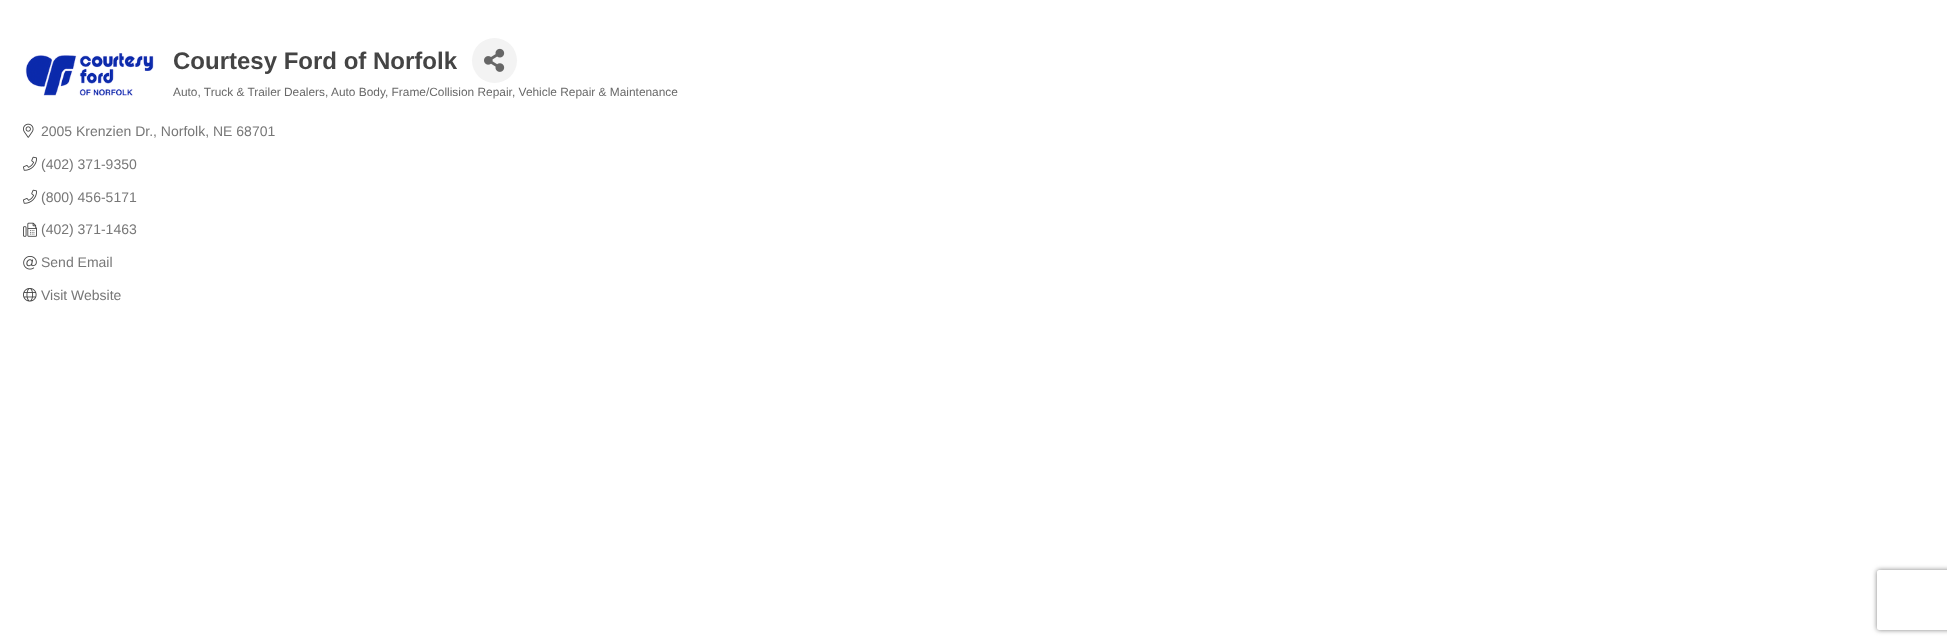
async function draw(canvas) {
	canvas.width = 1947;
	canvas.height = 644;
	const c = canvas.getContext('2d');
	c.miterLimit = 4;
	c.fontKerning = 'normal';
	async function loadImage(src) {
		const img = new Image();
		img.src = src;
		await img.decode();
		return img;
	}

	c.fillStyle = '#fff';
	c.fillRect(0, 0, 1947, 644);
	c.drawImage(await loadImage('img1.png'), 25, 53, 129, 43);
	c.font = 'bold 24px Liberation Sans';
	c.fillStyle = '#444';
	c.fillText('Courtesy Ford of Norfolk', 173, 69);
	c.fillStyle = '#f3f3f3';
	c.beginPath();
	c.arc(494.5, 60.5, 22.5, 0, 2 * Math.PI);
	c.fill();
	c.drawImage(await loadImage('img2.png'), 484, 48, 21, 24);
	c.font = '11.9px Liberation Sans';
	c.fillStyle = '#696969';
	for (const [text, x, y] of [
		['Auto, Truck & Trailer Dealers,', 173, 96],
		['Auto Body, Frame/Collision Repair', 331, 96],
		[', Vehicle Repair & Maintenance', 512, 96],
	]) {
		c.fillText(text, x, y);
	}
	c.drawImage(await loadImage('img3.png'), 23, 123, 11, 15);
	c.font = '14px Liberation Sans';
	c.fillStyle = '#777';
	c.fillText('2005 Krenzien Dr., Norfolk, NE 68701', 41, 136);
	c.drawImage(await loadImage('img4.png'), 23, 156, 14, 15);
	c.fillText('(402) 371-9350', 41, 169);
	c.drawImage(await loadImage('img4.png'), 23, 189, 14, 15);
	c.fillText('(800) 456-5171', 41, 202);
	c.drawImage(await loadImage('img5.png'), 23, 222, 14, 15);
	c.fillText('(402) 371-1463', 41, 234);
	c.drawImage(await loadImage('img6.png'), 23, 256, 14, 14);
	c.fillText('Send Email', 41, 267);
	c.drawImage(await loadImage('img7.png'), 23, 288, 14, 14);
	c.fillText('Visit Website', 41, 300);
	c.save();
	c.beginPath();
	c.moveTo(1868, 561);
	c.lineTo(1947, 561);
	c.lineTo(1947, 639);
	c.lineTo(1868, 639);
	c.closePath();
	c.moveTo(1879, 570);
	c.lineTo(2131, 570);
	c.bezierCurveTo(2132, 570, 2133, 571, 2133, 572);
	c.lineTo(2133, 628);
	c.bezierCurveTo(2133, 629, 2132, 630, 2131, 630);
	c.lineTo(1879, 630);
	c.bezierCurveTo(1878, 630, 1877, 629, 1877, 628);
	c.lineTo(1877, 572);
	c.bezierCurveTo(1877, 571, 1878, 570, 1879, 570);
	c.closePath();
	c.clip('evenodd');
	c.fillStyle = '#808080';
	c.filter = 'blur(2.5px)';
	c.beginPath();
	c.roundRect(1877, 570, 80, 60, 2);
	c.fill();
	c.filter = 'none';
	c.restore();
}

draw(document.querySelector('canvas'));
